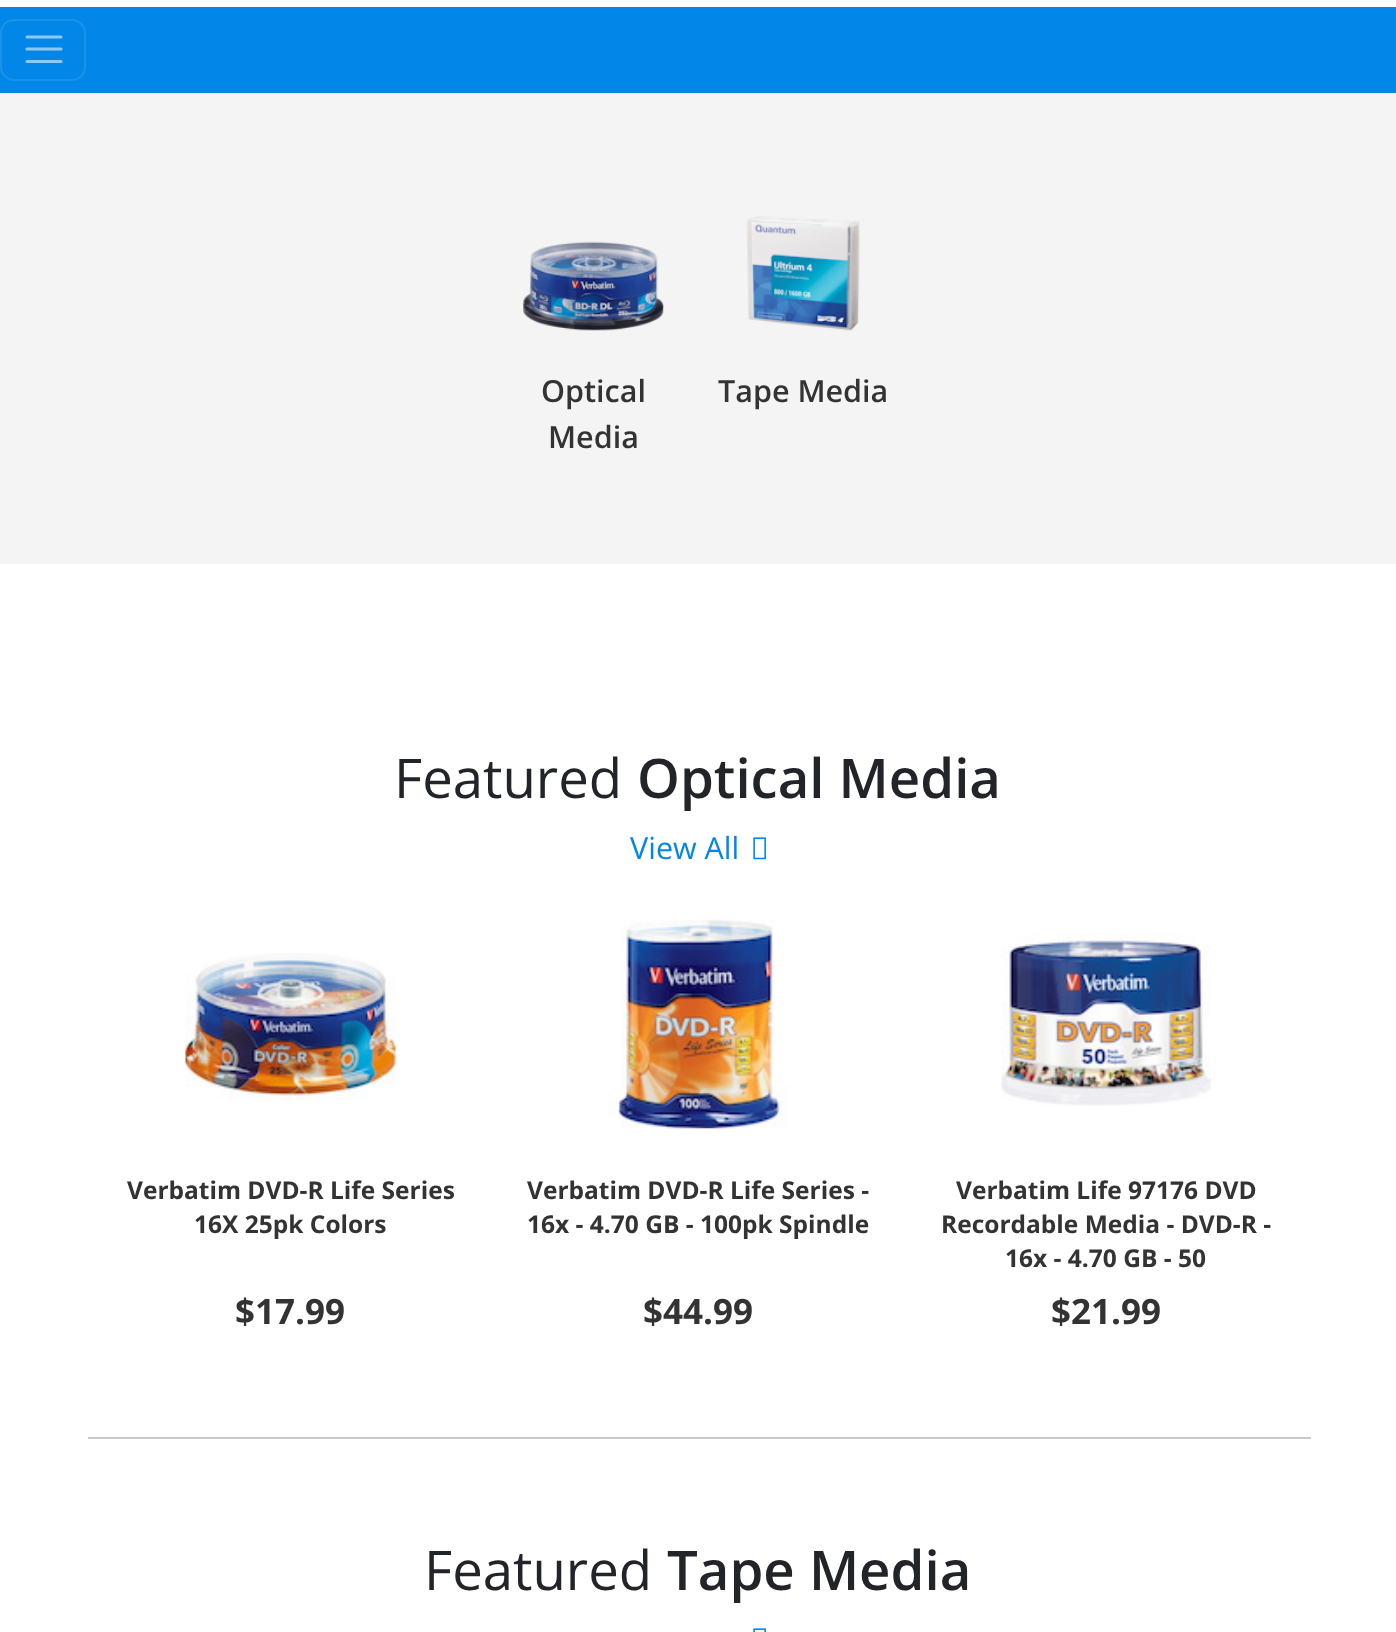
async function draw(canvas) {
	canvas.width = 1396;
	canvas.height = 1632;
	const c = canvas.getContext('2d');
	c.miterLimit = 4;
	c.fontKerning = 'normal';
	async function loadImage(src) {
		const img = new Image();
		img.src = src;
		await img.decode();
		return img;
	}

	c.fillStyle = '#fff';
	c.fillRect(0, 0, 1396, 1632);
	c.fillStyle = '#0286e7';
	c.fillRect(0, 7, 1396, 86);
	c.beginPath();
	c.roundRect(1, 20, 84, 60, 13);
	c.strokeStyle = '#1b92e9';
	c.lineWidth = 2;
	c.stroke();
	c.beginPath();
	c.moveTo(27, 37);
	c.lineTo(61, 37);
	c.moveTo(27, 49);
	c.lineTo(61, 49);
	c.moveTo(27, 61.5);
	c.lineTo(61, 61.5);
	c.strokeStyle = '#8dc9f4';
	c.lineWidth = 3.1;
	c.lineCap = 'round';
	c.stroke();
	c.fillStyle = '#f4f4f4';
	c.fillRect(0, 93, 1396, 471);
	c.drawImage(await loadImage('img1.png'), 523, 241, 141, 90);
	c.font = '600 30.5px Open Sans';
	c.fillStyle = '#333';
	c.fillText('Optical', 541, 402);
	c.fillText('Media', 548, 448);
	c.drawImage(await loadImage('img2.png'), 746, 216, 114, 115);
	c.fillText('Tape Media', 718, 402);
	c.font = '54.5px Open Sans';
	c.fillStyle = '#212529';
	c.fillText('Featured', 394, 798);
	c.font = '600 54.5px Open Sans';
	c.fillText('Optical Media', 637, 798);
	c.font = '30.5px Open Sans';
	c.fillStyle = '#0286e7';
	c.fillText('View All', 630, 859);
	c.drawImage(await loadImage('img3.png'), 753, 837, 13, 23);
	c.drawImage(await loadImage('img4.png'), 185, 953, 211, 147);
	c.font = 'bold 24.5px Open Sans';
	c.fillStyle = '#333';
	c.fillText('Verbatim DVD-R Life Series', 127, 1199);
	c.fillText('16X 25pk Colors', 194, 1233);
	c.font = 'bold 35px Open Sans';
	c.fillText('$17.99', 235, 1324);
	c.drawImage(await loadImage('img5.png'), 608, 919, 181, 210);
	c.font = 'bold 24.5px Open Sans';
	c.fillText('Verbatim DVD-R Life Series -', 527, 1199);
	c.fillText('16x - 4.70 GB - 100pk Spindle', 527, 1233);
	c.font = 'bold 35px Open Sans';
	c.fillText('$44.99', 643, 1324);
	c.drawImage(await loadImage('img6.png'), 1001, 933, 210, 173);
	c.font = 'bold 24.5px Open Sans';
	for (const [text, x, y] of [
		['Verbatim Life 97176 DVD', 956, 1199],
		['Recordable Media - DVD-R -', 941, 1233],
		['16x - 4.70 GB - 50', 1005, 1267],
	]) {
		c.fillText(text, x, y);
	}
	c.font = 'bold 35px Open Sans';
	c.fillText('$21.99', 1051, 1324);
	c.fillStyle = '#c8c9ca';
	c.fillRect(88, 1437, 1223, 2);
	c.font = '54.5px Open Sans';
	c.fillStyle = '#212529';
	c.fillText('Featured', 424, 1590);
	c.font = '600 54.5px Open Sans';
	c.fillText('Tape Media', 667, 1590);
	c.drawImage(await loadImage('img7.png'), 753, 1628, 13, 4);
}

draw(document.querySelector('canvas'));
